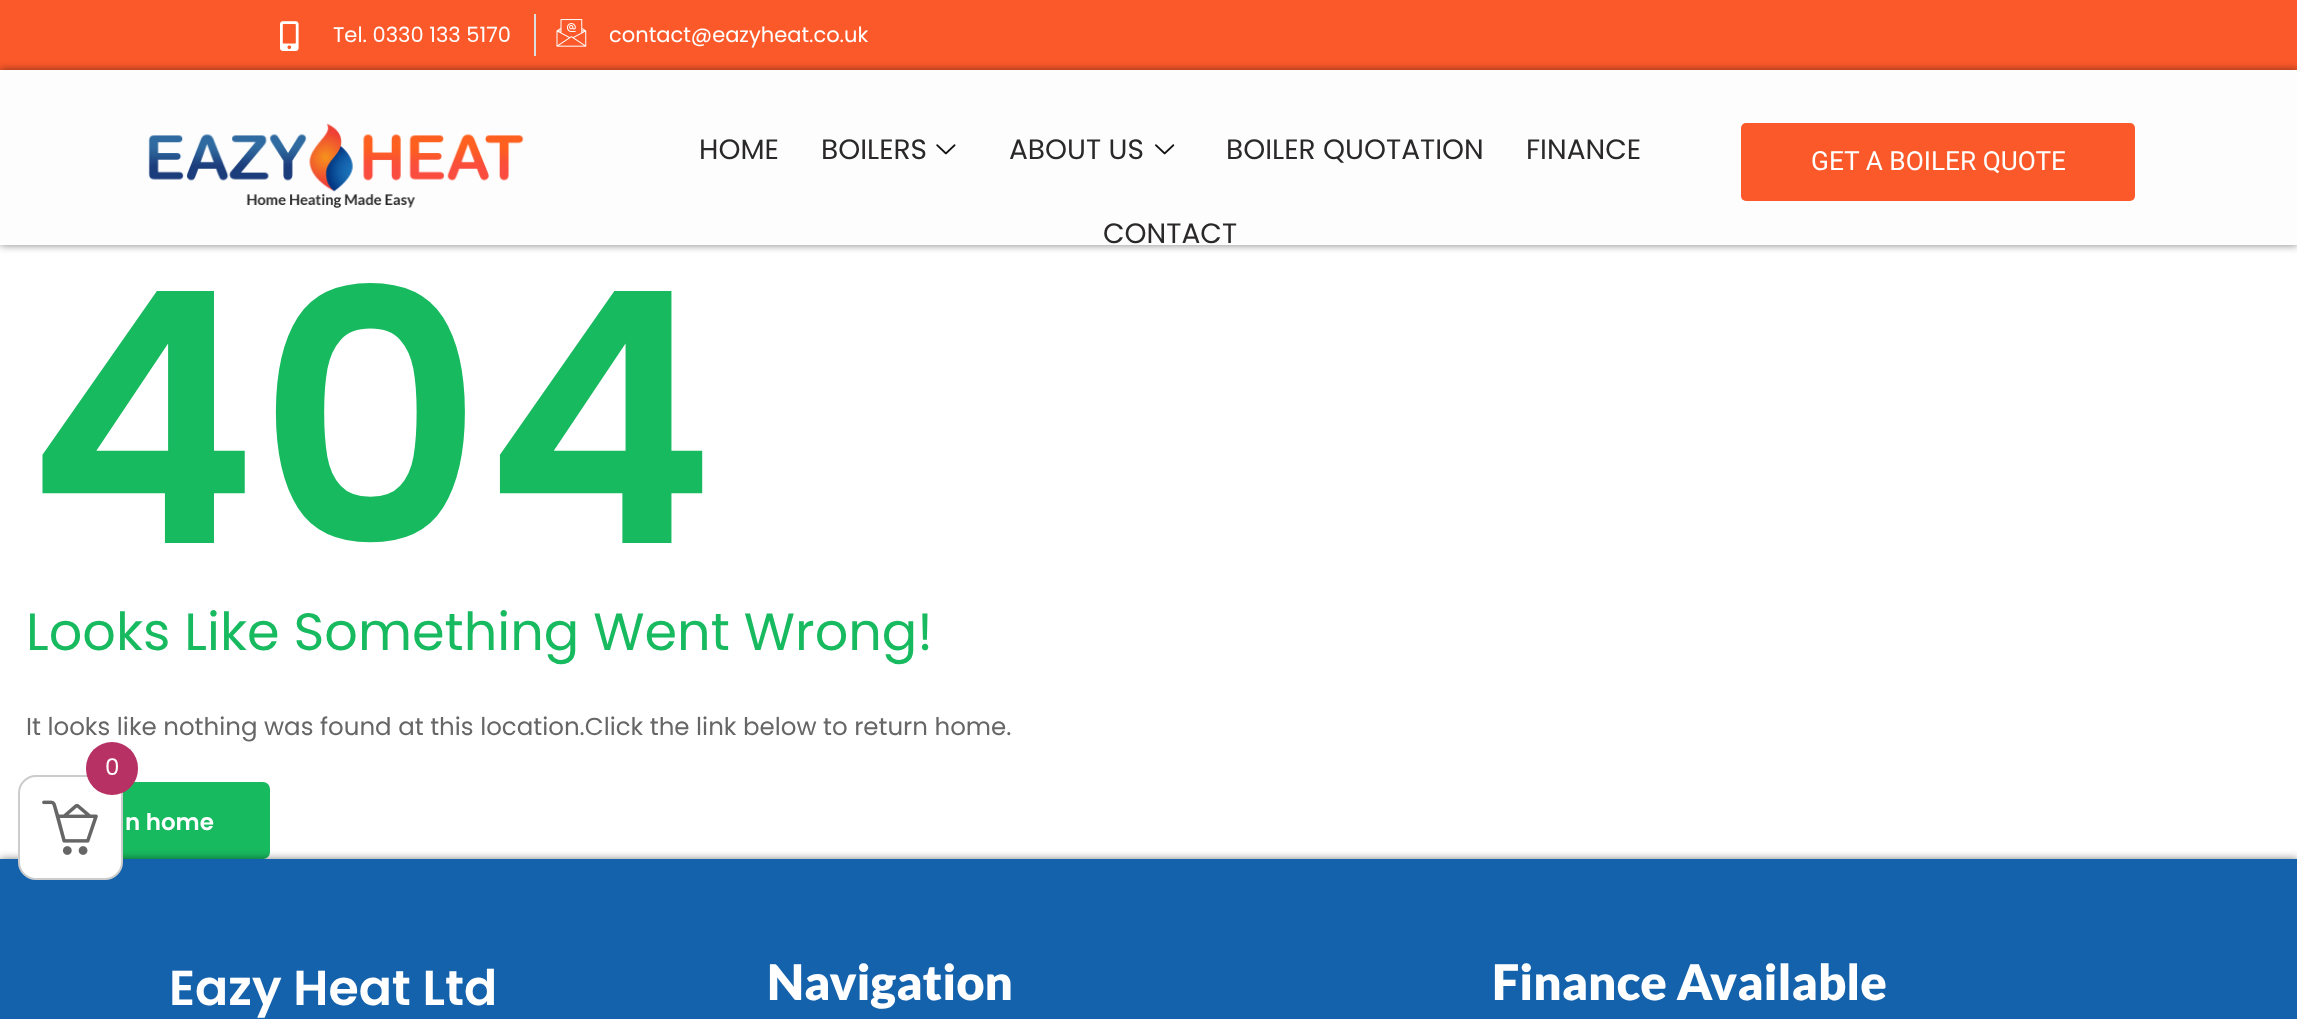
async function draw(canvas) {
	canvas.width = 2297;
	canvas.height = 1019;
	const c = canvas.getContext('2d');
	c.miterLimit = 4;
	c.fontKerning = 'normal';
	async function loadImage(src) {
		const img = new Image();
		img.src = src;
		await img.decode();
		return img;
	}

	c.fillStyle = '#fff';
	c.fillRect(0, 0, 2297, 1019);
	c.fillStyle = '#fb592a';
	c.fillRect(0, 0, 2297, 70);
	c.drawImage(await loadImage('img1.png'), 280, 21, 19, 30);
	c.font = '21px Poppins';
	c.fillStyle = '#fff';
	c.fillText('Tel. 0330 133 5170', 333, 42);
	c.fillStyle = '#ddd';
	c.fillRect(534, 14, 2, 42);
	c.drawImage(await loadImage('img2.png'), 556, 19, 31, 28);
	c.fillStyle = '#fff';
	c.fillText('contact@eazyheat.co.uk', 609, 42);
	c.fillStyle = '#00000080';
	c.filter = 'blur(4.5px)';
	c.beginPath();
	c.rect(0, 70, 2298, 175);
	c.fill();
	c.filter = 'none';
	c.fillStyle = '#fdfdfd';
	c.fillRect(0, 70, 2297, 175);
	c.drawImage(await loadImage('img3.png'), 148, 123, 376, 85);
	c.font = '28px Poppins';
	c.fillStyle = '#2a2828';
	c.fillText('HOME', 699, 159);
	c.fillText('BOILERS', 821, 159);
	c.drawImage(await loadImage('img4.png'), 936, 144, 20, 11);
	c.fillText('ABOUT US', 1009, 159);
	c.drawImage(await loadImage('img5.png'), 1155, 144, 20, 11);
	for (const [text, x, y] of [
		['BOILER QUOTATION', 1226, 159],
		['FINANCE', 1526, 159],
		['CONTACT', 1103, 243],
	]) {
		c.fillText(text, x, y);
	}
	c.fillStyle = '#fb592a';
	c.beginPath();
	c.roundRect(1741, 123, 394, 78, 5);
	c.fill();
	c.font = '26.25px Roboto';
	c.fillStyle = '#fff';
	c.fillText('GET A BOILER QUOTE', 1811, 170);
	c.font = '600 350px Poppins';
	c.fillStyle = '#18ba60';
	c.fillText('404', 26, 543);
	c.font = '52.5px Poppins';
	c.fillText('Looks Like Something Went Wrong!', 26, 650);
	c.font = '24.5px Poppins';
	c.fillStyle = '#666';
	c.fillText('It looks like nothing was found at this location.Click the link below to return home.', 26, 735);
	c.fillStyle = '#18ba60';
	c.beginPath();
	c.roundRect(26, 782, 244, 77, 7);
	c.fill();
	c.font = '600 23px Poppins';
	c.fillStyle = '#fff';
	c.fillText('n home', 125, 830);
	c.fillStyle = '#00000080';
	c.filter = 'blur(4.5px)';
	c.beginPath();
	c.rect(0, 859, 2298, 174);
	c.fill();
	c.filter = 'none';
	c.fillStyle = '#1462ac';
	c.fillRect(0, 859, 2297, 160);
	c.fillStyle = '#fff';
	c.beginPath();
	c.roundRect(19, 776, 103, 103, 17);
	c.fill();
	c.strokeStyle = '#ccc';
	c.lineWidth = 2;
	c.stroke();
	c.fillStyle = '#b83164';
	c.beginPath();
	c.roundRect(86, 742, 52, 53, 26);
	c.fill();
	c.font = '23px Poppins';
	c.fillStyle = '#fff';
	c.fillText('0', 105, 775);
	c.drawImage(await loadImage('img6.png'), 42, 800, 56, 55);
	c.font = '600 49px Poppins';
	c.fillText('Eazy Heat Ltd', 169, 1005);
	c.font = '900 49px Lato';
	c.fillText('Navigation', 767, 1000);
	c.fillText('Finance Available', 1492, 1000);
}

draw(document.querySelector('canvas'));
